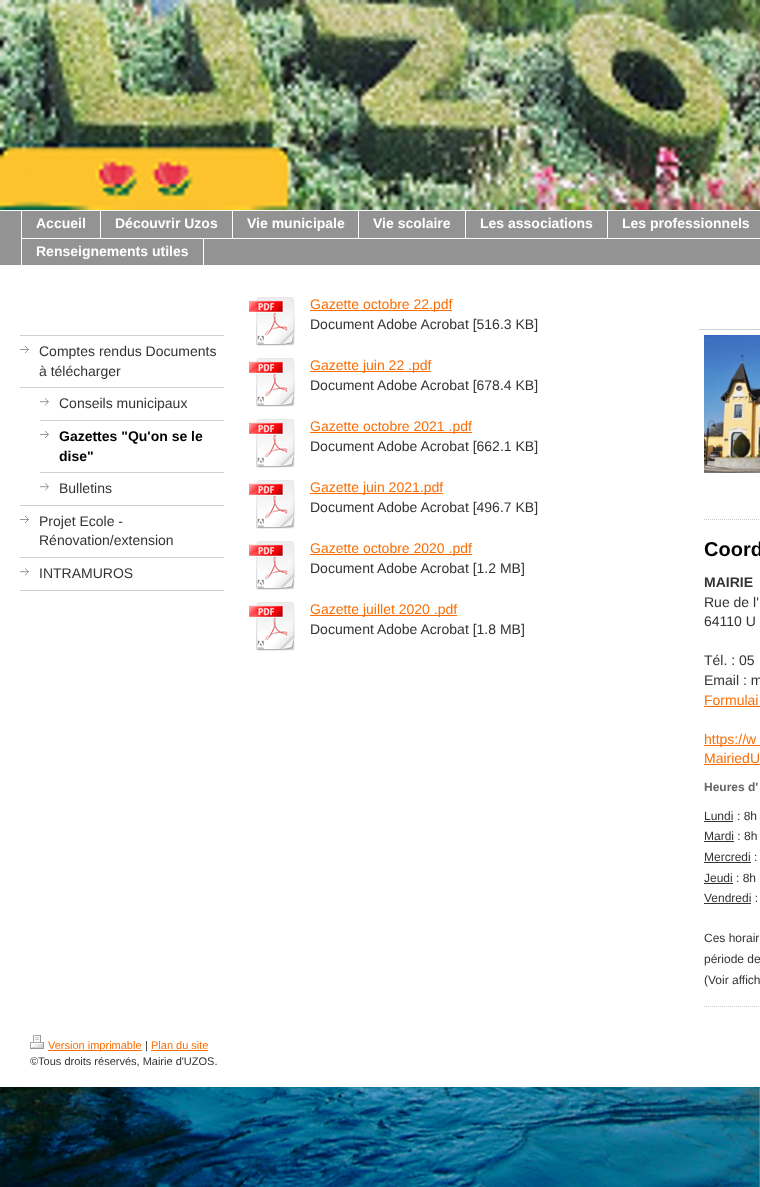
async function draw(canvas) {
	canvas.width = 760;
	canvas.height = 1187;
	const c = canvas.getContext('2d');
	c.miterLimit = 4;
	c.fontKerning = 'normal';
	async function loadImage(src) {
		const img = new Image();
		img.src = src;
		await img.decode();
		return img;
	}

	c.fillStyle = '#fff';
	c.fillRect(0, 0, 760, 1187);
	c.drawImage(await loadImage('img1.png'), 0, 1087, 760, 100);
	c.drawImage(await loadImage('img2.png'), 0, 0, 760, 210);
	for (const [x, y, w, h, color] of [
		[0, 211, 760, 54, '#939393'],
		[21, 210, 1, 55, '#fff'],
		[100, 210, 1, 29, '#fff'],
	]) {
		c.fillStyle = color;
		c.fillRect(x, y, w, h);
	}
	c.font = 'bold 14px Liberation Sans';
	c.fillText('Accueil', 36, 228);
	c.fillRect(232, 210, 1, 29);
	c.fillRect(22, 238, 211, 1);
	c.fillText('Découvrir Uzos', 115, 228);
	c.fillRect(358, 210, 1, 29);
	c.fillRect(233, 238, 126, 1);
	c.fillText('Vie municipale', 247, 228);
	c.fillRect(465, 210, 1, 29);
	c.fillRect(359, 238, 107, 1);
	c.fillText('Vie scolaire', 373, 228);
	c.fillRect(607, 210, 1, 29);
	c.fillRect(466, 238, 294, 1);
	c.fillText('Les associations', 480, 228);
	c.fillText('Les professionnels', 622, 228);
	c.fillRect(203, 238, 1, 28);
	c.fillText('Renseignements utiles', 36, 256);
	c.fillStyle = '#cad1d5';
	c.fillRect(20, 335, 204, 1);
	c.drawImage(await loadImage('img3.png'), 20, 346, 9, 7);
	c.fillRect(20, 387, 204, 1);
	c.font = '14px Liberation Sans';
	c.fillStyle = '#333';
	c.fillText('Comptes rendus Documents', 39, 356);
	c.fillText('à télécharger', 39, 376);
	c.drawImage(await loadImage('img4.png'), 40, 398, 9, 8);
	c.fillStyle = '#cad1d5';
	c.fillRect(40, 420, 184, 1);
	c.fillStyle = '#333';
	c.fillText('Conseils municipaux', 59, 408);
	c.drawImage(await loadImage('img3.png'), 40, 431, 9, 7);
	c.fillStyle = '#cad1d5';
	c.fillRect(40, 472, 184, 1);
	c.font = 'bold 14px Liberation Sans';
	c.fillStyle = '#010101';
	c.fillText('Gazettes "Qu\'on se le', 59, 441);
	c.fillText('dise"', 59, 461);
	c.drawImage(await loadImage('img4.png'), 40, 483, 9, 8);
	c.font = '14px Liberation Sans';
	c.fillStyle = '#333';
	c.fillText('Bulletins', 59, 493);
	c.drawImage(await loadImage('img3.png'), 20, 516, 9, 7);
	c.fillStyle = '#cad1d5';
	c.fillRect(20, 505, 204, 1);
	c.fillRect(20, 557, 204, 1);
	c.fillStyle = '#333';
	c.fillText('Projet Ecole -', 39, 526);
	c.fillText('Rénovation/extension', 39, 545);
	c.drawImage(await loadImage('img4.png'), 20, 568, 9, 8);
	c.fillStyle = '#cad1d5';
	c.fillRect(20, 590, 204, 1);
	c.fillStyle = '#333';
	c.fillText('INTRAMUROS', 39, 578);
	c.drawImage(await loadImage('img5.png'), 249, 297, 46, 49);
	c.fillStyle = '#fb6e05';
	c.fillRect(310, 310, 142, 1);
	c.fillText('Gazette octobre 22.pdf', 310, 309);
	c.fillStyle = '#333';
	c.fillText('Document Adobe Acrobat [516.3 KB]', 310, 329);
	c.drawImage(await loadImage('img5.png'), 249, 358, 46, 49);
	c.fillStyle = '#fb6e05';
	c.fillRect(310, 371, 121, 1);
	c.fillText('Gazette juin 22 .pdf', 310, 370);
	c.fillStyle = '#333';
	c.fillText('Document Adobe Acrobat [678.4 KB]', 310, 390);
	c.drawImage(await loadImage('img5.png'), 249, 419, 46, 49);
	c.fillStyle = '#fb6e05';
	c.fillRect(310, 432, 162, 1);
	c.fillText('Gazette octobre 2021 .pdf', 310, 431);
	c.fillStyle = '#333';
	c.fillText('Document Adobe Acrobat [662.1 KB]', 310, 451);
	c.drawImage(await loadImage('img5.png'), 249, 480, 46, 49);
	c.fillStyle = '#fb6e05';
	c.fillRect(310, 493, 133, 1);
	c.fillText('Gazette juin 2021.pdf', 310, 492);
	c.fillStyle = '#333';
	c.fillText('Document Adobe Acrobat [496.7 KB]', 310, 512);
	c.drawImage(await loadImage('img5.png'), 249, 541, 46, 49);
	c.fillStyle = '#fb6e05';
	c.fillRect(310, 554, 162, 1);
	c.fillText('Gazette octobre 2020 .pdf', 310, 553);
	c.fillStyle = '#333';
	c.fillText('Document Adobe Acrobat [1.2 MB]', 310, 573);
	c.drawImage(await loadImage('img5.png'), 249, 602, 46, 49);
	c.fillStyle = '#fb6e05';
	c.fillRect(310, 615, 147, 1);
	c.fillText('Gazette juillet 2020 .pdf', 310, 614);
	c.fillStyle = '#333';
	c.fillText('Document Adobe Acrobat [1.8 MB]', 310, 634);
	c.fillStyle = '#cad1d5';
	c.fillRect(699, 329, 61, 1);
	c.drawImage(await loadImage('img6.png'), 704, 335, 56, 138);
	c.beginPath();
	c.moveTo(704, 519.5);
	c.lineTo(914, 519.5);
	c.strokeStyle = '#ccc';
	c.setLineDash([1, 1]);
	c.stroke();
	c.font = 'bold 20px Liberation Sans';
	c.fillStyle = '#010101';
	c.fillText('Coord', 704, 556);
	c.font = 'bold 14px Liberation Sans';
	c.fillStyle = '#333';
	c.fillText('MAIRIE', 704, 587);
	c.font = '14px Liberation Sans';
	for (const [text, x, y] of [
		['Rue de l\'', 704, 607],
		['64110 U', 704, 626],
		['Tél. : 05', 704, 665],
		['Email : m', 704, 685],
	]) {
		c.fillText(text, x, y);
	}
	c.fillStyle = '#fb6e05';
	c.fillText('Formulai', 704, 705);
	c.fillRect(704, 706, 56, 1);
	c.fillRect(704, 745, 56, 1);
	c.fillText('https://w', 704, 744);
	c.fillText('MairiedU', 704, 763);
	c.fillRect(704, 764, 56, 1);
	c.font = 'bold 12px Liberation Sans';
	c.fillStyle = '#666';
	c.fillText('Heures d\'', 704, 791);
	c.font = '12px Liberation Sans';
	c.fillStyle = '#333';
	c.fillText('Lundi', 704, 820);
	c.fillRect(704, 821, 29, 1);
	c.fillText(': 8h', 737, 820);
	c.fillText('Mardi : 8h', 704, 840);
	c.fillRect(704, 841, 30, 1);
	c.fillText('Mercredi :', 704, 861);
	c.fillRect(704, 862, 47, 1);
	c.fillText('Jeudi : 8h', 704, 882);
	c.fillRect(704, 883, 29, 1);
	c.fillText('Vendredi :', 704, 902);
	c.fillRect(704, 903, 47, 1);
	for (const [text, x, y] of [
		['Ces horair', 704, 942],
		['période de', 704, 963],
		['(Voir affich', 704, 984],
	]) {
		c.fillText(text, x, y);
	}
	c.beginPath();
	c.moveTo(704, 1006.5);
	c.lineTo(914, 1006.5);
	c.stroke();
	c.drawImage(await loadImage('img7.png'), 30, 1035, 14, 14);
	c.fillStyle = '#fb6e05';
	c.fillRect(48, 1050, 94, 1);
	c.font = '11px Liberation Sans';
	c.fillText('Version imprimable', 48, 1049);
	c.fillStyle = '#333';
	c.fillText('|', 145, 1049);
	c.fillStyle = '#fb6e05';
	c.fillText('Plan du site', 151, 1049);
	c.fillRect(151, 1050, 57, 1);
	c.fillStyle = '#333';
	c.fillText('©Tous droits réservés, Mairie d\'UZOS.', 30, 1065);
}

draw(document.querySelector('canvas'));
